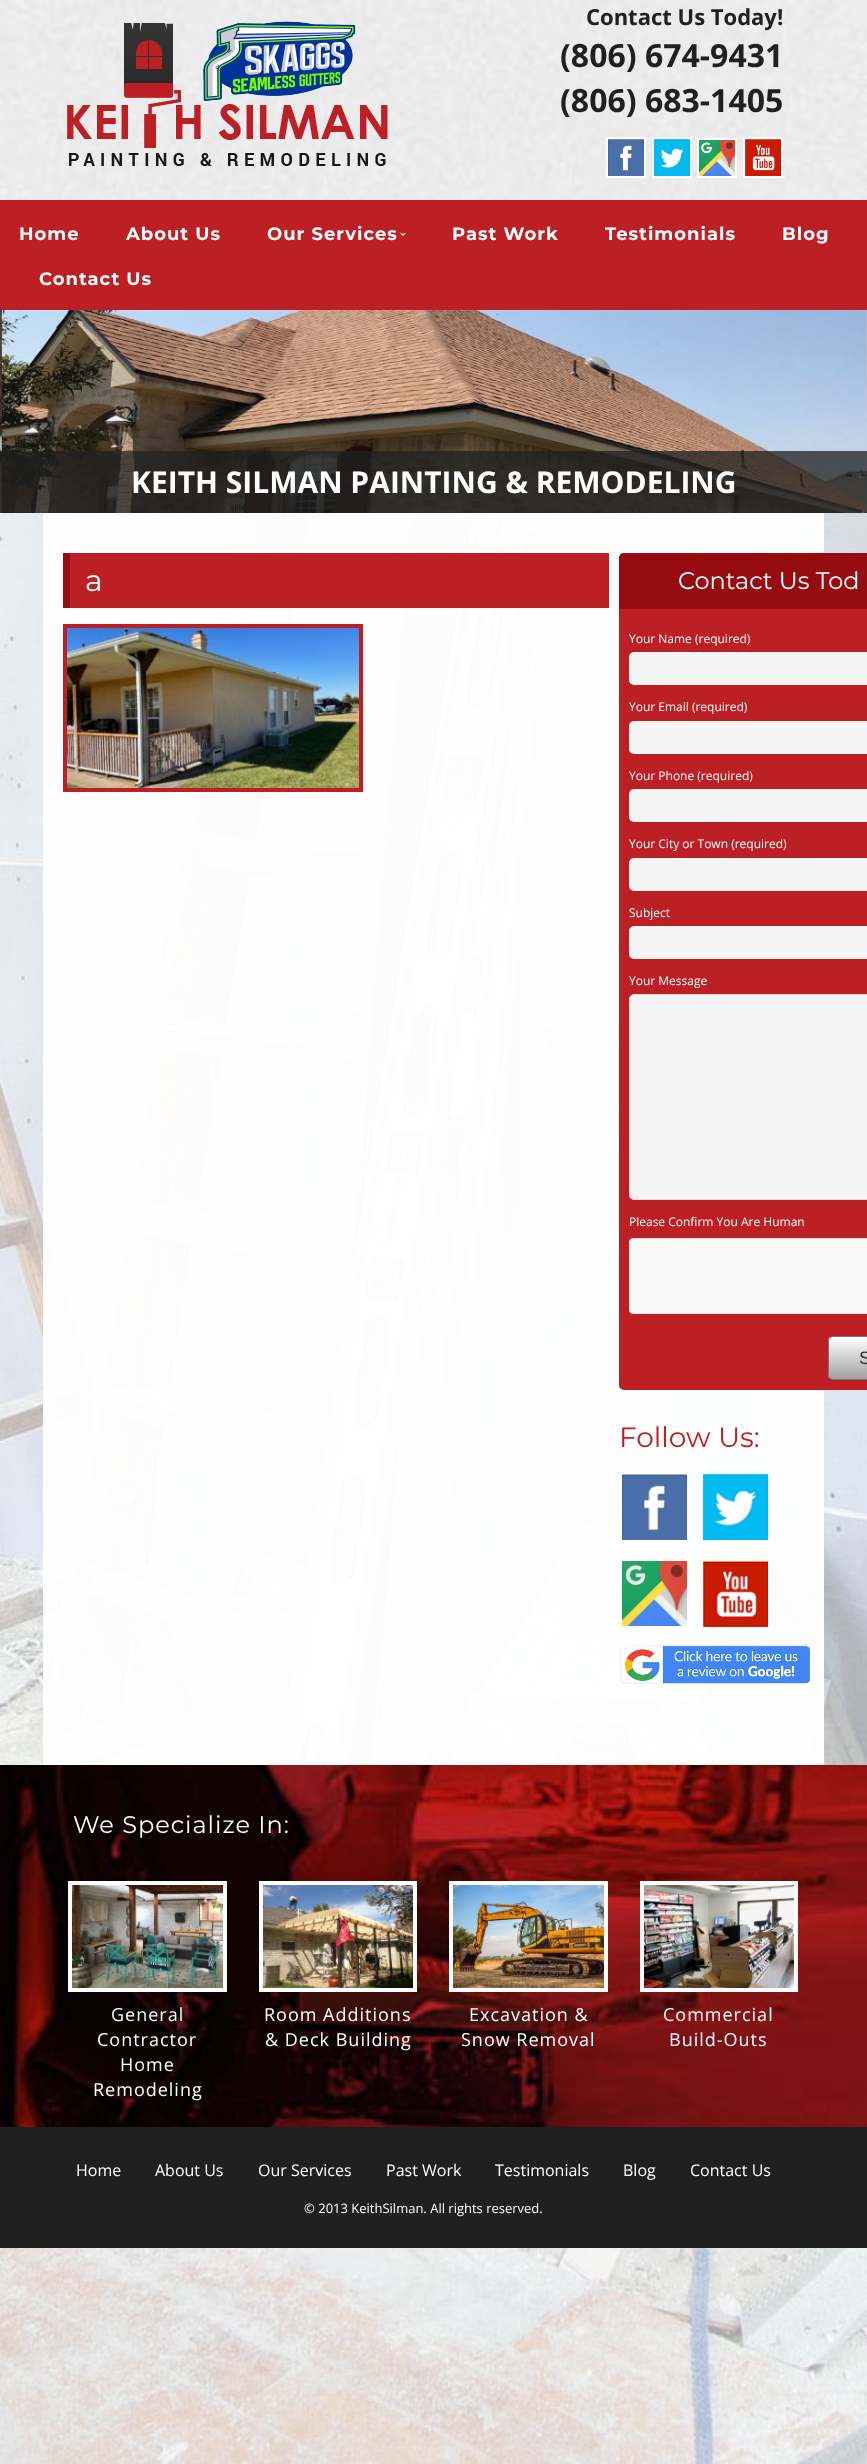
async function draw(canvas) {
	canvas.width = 867;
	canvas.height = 2464;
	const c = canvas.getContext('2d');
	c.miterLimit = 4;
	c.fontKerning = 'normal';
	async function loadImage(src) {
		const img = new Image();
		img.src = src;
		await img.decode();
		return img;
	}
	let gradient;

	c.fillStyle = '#fff';
	c.fillRect(0, 0, 867, 2464);
	c.drawImage(await loadImage('img1.png'), 0, 310, 867, 2154);
	c.drawImage(await loadImage('img2.png'), 0, 0, 867, 200);
	c.drawImage(await loadImage('img3.png'), 67, 21, 321, 145);
	c.font = 'bold 22px Open Sans';
	c.fillStyle = '#202020';
	c.fillText('Contact Us Today!', 586, 25);
	c.font = 'bold 32px Open Sans';
	c.fillText('(806) 674-9431', 560, 67);
	c.fillText('(806) 683-1405', 560, 112);
	c.strokeStyle = '#fff';
	c.lineWidth = 2;
	c.strokeRect(607, 138, 38, 39);
	c.strokeRect(653, 138, 38, 39);
	c.strokeRect(698, 139, 38, 38);
	c.strokeRect(744, 138, 38, 39);
	c.drawImage(await loadImage('img4.png'), 608, 139, 36, 37);
	c.drawImage(await loadImage('img5.png'), 654, 139, 36, 37);
	c.drawImage(await loadImage('img6.png'), 699, 140, 36, 36);
	c.drawImage(await loadImage('img7.png'), 745, 139, 36, 37);
	c.fillStyle = '#bc2025';
	c.fillRect(0, 200, 867, 110);
	c.letterSpacing = '1px';
	c.font = 'bold 18px Montserrat';
	c.fillStyle = '#fff';
	for (const [text, x, y] of [
		['Home', 19, 240],
		['About Us', 126, 240],
		['Our Services', 267, 240],
	]) {
		c.fillText(text, x, y);
	}
	c.drawImage(await loadImage('img8.png'), 400, 232, 6, 4);
	for (const [text, x, y] of [
		['Past Work', 452, 240],
		['Testimonials', 605, 240],
		['Blog', 782, 240],
		['Contact Us', 39, 285],
	]) {
		c.fillText(text, x, y);
	}
	c.drawImage(await loadImage('img9.png'), 0, 310, 867, 203);
	c.fillStyle = '#202020bf';
	c.fillRect(0, 451, 867, 62);
	c.letterSpacing = '0px';
	c.font = 'bold 30px Open Sans';
	c.fillStyle = '#fff';
	c.fillText('KEITH SILMAN PAINTING & REMODELING', 131, 493);
	for (const [x, y, w, h, color] of [
		[43, 513, 781, 1252, '#fffffff2'],
		[70, 553, 539, 55, '#bc2025'],
		[63, 553, 7, 55, '#970c10'],
	]) {
		c.fillStyle = color;
		c.fillRect(x, y, w, h);
	}
	c.font = '30px Montserrat';
	c.fillStyle = '#fff';
	c.fillText('a', 85, 591);
	c.strokeStyle = '#bc2025';
	c.lineWidth = 4;
	c.strokeRect(65, 626, 296, 164);
	c.drawImage(await loadImage('img10.png'), 67, 628, 292, 160);
	c.fillStyle = '#bc2025';
	c.beginPath();
	c.roundRect(619, 558, 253, 832, 5);
	c.fill();
	c.fillStyle = '#970c10';
	c.beginPath();
	c.moveTo(624, 553);
	c.lineTo(867, 553);
	c.bezierCurveTo(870, 553, 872, 555, 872, 558);
	c.lineTo(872, 609);
	c.lineTo(619, 609);
	c.lineTo(619, 558);
	c.bezierCurveTo(619, 555, 621, 553, 624, 553);
	c.closePath();
	c.fill();
	c.font = '24px Montserrat';
	c.fillStyle = '#fff';
	c.fillText('Contact Us Tod', 678, 589);
	c.font = '12px Open Sans';
	c.fillText('Your Name (required)', 629, 643);
	c.fillStyle = '#f5f5f5';
	c.beginPath();
	c.roundRect(629, 652, 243, 33, 5);
	c.fill();
	c.fillStyle = '#fff';
	c.fillText('Your Email (required)', 629, 711);
	c.fillStyle = '#f5f5f5';
	c.beginPath();
	c.roundRect(629, 721, 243, 33, 5);
	c.fill();
	c.fillStyle = '#fff';
	c.fillText('Your Phone (required)', 629, 780);
	c.fillStyle = '#f5f5f5';
	c.beginPath();
	c.roundRect(629, 789, 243, 33, 5);
	c.fill();
	c.fillStyle = '#fff';
	c.fillText('Your City or Town (required)', 629, 848);
	c.fillStyle = '#f5f5f5';
	c.beginPath();
	c.roundRect(629, 858, 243, 33, 5);
	c.fill();
	c.fillStyle = '#fff';
	c.fillText('Subject', 629, 917);
	c.fillStyle = '#f5f5f5';
	c.beginPath();
	c.roundRect(629, 926, 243, 33, 5);
	c.fill();
	c.fillStyle = '#fff';
	c.fillText('Your Message', 629, 985);
	c.fillStyle = '#f5f5f5';
	c.beginPath();
	c.roundRect(629.5, 994.5, 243, 205, 4.5);
	c.fill();
	c.strokeStyle = '#ddd';
	c.lineWidth = 1;
	c.stroke();
	c.fillStyle = '#fff';
	c.fillText('Please Confirm You Are Human', 629, 1226);
	c.fillStyle = '#fafafa';
	c.beginPath();
	c.roundRect(629.5, 1238.5, 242, 75, 3.5);
	c.fill();
	c.strokeStyle = '#e0e0e0';
	c.stroke();
	c.save();
	c.beginPath();
	c.roundRect(828, 1336, 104, 44, 5);
	c.clip();
	gradient = c.createLinearGradient(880, 1337, 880, 1379);
	gradient.addColorStop(0, '#fff');
	gradient.addColorStop(1, '#a1a1a1');
	c.fillStyle = gradient;
	c.fillRect(828, 1337, 39, 42);
	c.restore();
	c.beginPath();
	c.roundRect(828.5, 1336.5, 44, 43, 4.5);
	c.strokeStyle = '#757575';
	c.stroke();
	c.font = '18px Liberation Sans';
	c.fillStyle = '#333';
	c.fillText('S', 859, 1364);
	c.font = '28px Montserrat';
	c.fillStyle = '#bc2025';
	c.fillText('Follow Us:', 619, 1447);
	c.strokeStyle = '#fff';
	c.lineWidth = 3;
	c.strokeRect(620.5, 1472.5, 68, 69);
	c.drawImage(await loadImage('img11.png'), 622, 1474, 65, 66);
	c.strokeRect(701.5, 1472.5, 68, 69);
	c.drawImage(await loadImage('img12.png'), 703, 1474, 65, 66);
	c.drawImage(await loadImage('img13.png'), 622, 1561, 65, 65);
	c.strokeRect(701.5, 1559.5, 68, 69);
	c.drawImage(await loadImage('img14.png'), 703, 1561, 65, 66);
	c.drawImage(await loadImage('img15.png'), 620, 1645, 190, 39);
	c.drawImage(await loadImage('img16.png'), 0, 1765, 867, 362);
	c.letterSpacing = '1px';
	c.font = '24px Montserrat';
	c.fillStyle = '#fff';
	c.fillText('We Specialize In:', 73, 1833);
	c.beginPath();
	c.rect(70, 1883, 155, 107);
	c.lineWidth = 4;
	c.stroke();
	c.drawImage(await loadImage('img17.png'), 72, 1885, 151, 103);
	c.font = '18px Open Sans';
	for (const [text, x, y] of [
		['General', 111, 2021],
		['Contractor', 97, 2046],
		['Home', 120, 2071],
		['Remodeling', 93, 2096],
	]) {
		c.fillText(text, x, y);
	}
	c.beginPath();
	c.rect(261, 1883, 154, 107);
	c.stroke();
	c.drawImage(await loadImage('img18.png'), 263, 1885, 150, 103);
	c.fillText('Room Additions', 264, 2021);
	c.fillText('& Deck Building', 265, 2046);
	c.beginPath();
	c.rect(451, 1883, 155, 107);
	c.stroke();
	c.drawImage(await loadImage('img19.png'), 453, 1885, 151, 103);
	c.fillText('Excavation &', 469, 2021);
	c.fillText('Snow Removal', 461, 2046);
	c.beginPath();
	c.rect(642, 1883, 154, 107);
	c.stroke();
	c.drawImage(await loadImage('img20.png'), 644, 1885, 150, 103);
	c.fillText('Commercial', 663, 2021);
	c.fillText('Build-Outs', 669, 2046);
	c.fillStyle = '#202020';
	c.fillRect(0, 2127, 867, 121);
	c.letterSpacing = '0px';
	c.font = '16px Open Sans';
	c.fillStyle = '#fff';
	for (const [text, x, y] of [
		['Home', 76, 2176],
		['About Us', 155, 2176],
		['Our Services', 258, 2176],
		['Past Work', 386, 2176],
		['Testimonials', 495, 2176],
		['Blog', 623, 2176],
		['Contact Us', 690, 2176],
	]) {
		c.fillText(text, x, y);
	}
	c.font = '13px Open Sans';
	c.fillText('© 2013 KeithSilman. All rights reserved.', 304, 2213);
}

draw(document.querySelector('canvas'));
